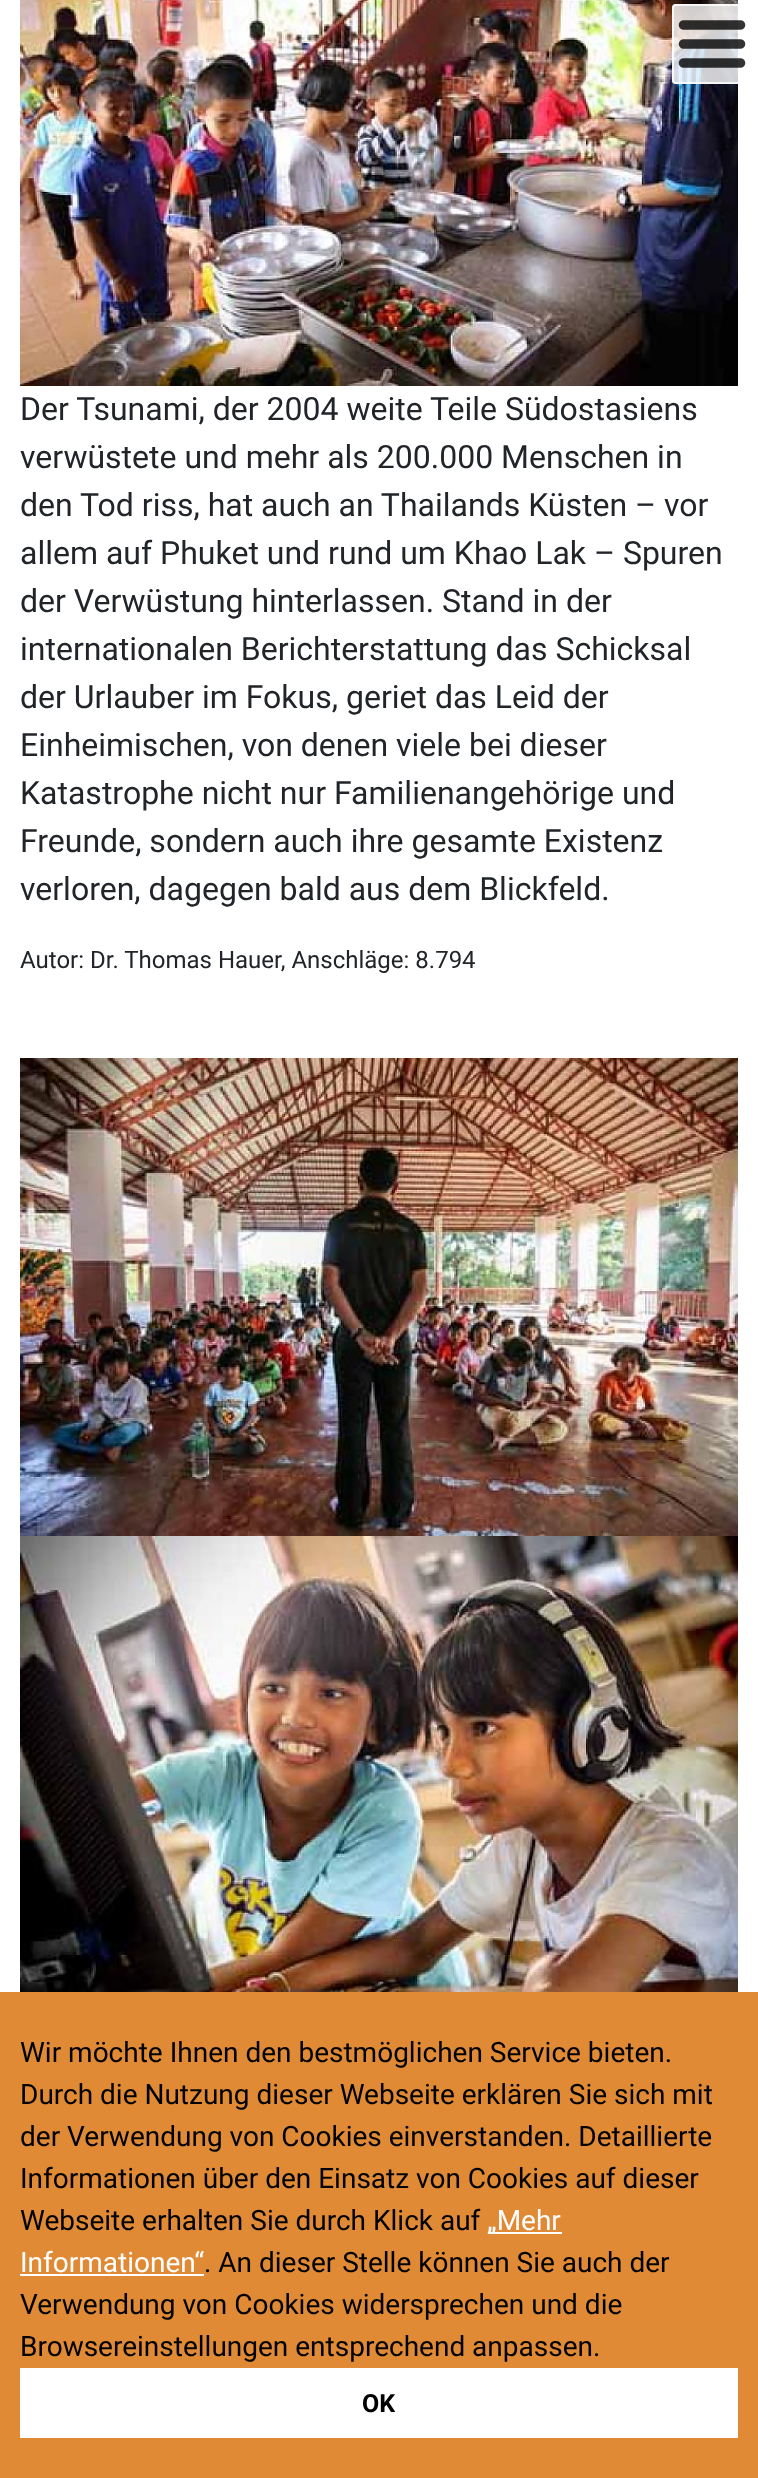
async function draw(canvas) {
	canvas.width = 758;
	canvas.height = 2478;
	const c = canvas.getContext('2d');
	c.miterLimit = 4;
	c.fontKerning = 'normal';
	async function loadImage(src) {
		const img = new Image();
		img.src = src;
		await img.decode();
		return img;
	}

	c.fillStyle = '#fff';
	c.fillRect(0, 0, 758, 2478);
	c.drawImage(await loadImage('img2.png'), 20, 0, 718, 386);
	c.fillStyle = '#ffffffcc';
	c.beginPath();
	c.roundRect(672, 4, 80, 80, 4);
	c.fill();
	c.drawImage(await loadImage('img1.png'), 678, 20, 68, 48);
	c.beginPath();
	c.roundRect(673, 5, 78, 78, 3);
	c.strokeStyle = '#ffffffcc';
	c.lineWidth = 2;
	c.stroke();
	c.font = '32px Roboto';
	c.fillStyle = '#212529';
	for (const [text, x, y] of [
		['Der Tsunami, der 2004 weite Teile Südostasiens', 20, 420],
		['verwüstete und mehr als 200.000 Menschen in', 20, 468],
		['den Tod riss, hat auch an Thailands Küsten – vor', 20, 516],
		['allem auf Phuket und rund um Khao Lak – Spuren', 20, 564],
		['der Verwüstung hinterlassen. Stand in der', 20, 612],
		['internationalen Berichterstattung das Schicksal', 20, 660],
		['der Urlauber im Fokus, geriet das Leid der', 20, 708],
		['Einheimischen, von denen viele bei dieser', 20, 756],
		['Katastrophe nicht nur Familienangehörige und', 20, 804],
		['Freunde, sondern auch ihre gesamte Existenz', 20, 852],
		['verloren, dagegen bald aus dem Blickfeld.', 20, 900],
	]) {
		c.fillText(text, x, y);
	}
	c.font = '24px Roboto';
	c.fillText('Autor: Dr. Thomas Hauer, Anschläge: 8.794', 20, 968);
	c.drawImage(await loadImage('img3.png'), 20, 1058, 718, 478);
	c.drawImage(await loadImage('img4.png'), 20, 1536, 718, 456);
	c.fillStyle = '#e08a35';
	c.fillRect(0, 1992, 758, 486);
	c.font = '28px Roboto';
	c.fillStyle = '#000';
	for (const [text, x, y] of [
		['Wir möchte Ihnen den bestmöglichen Service bieten.', 20, 2062],
		['Durch die Nutzung dieser Webseite erklären Sie sich mit', 20, 2104],
		['der Verwendung von Cookies einverstanden. Detaillierte', 20, 2146],
		['Informationen über den Einsatz von Cookies auf dieser', 20, 2188],
		['Webseite erhalten Sie durch Klick auf', 20, 2230],
	]) {
		c.fillText(text, x, y);
	}
	c.fillStyle = '#fff';
	c.fillRect(488, 2232, 74, 2);
	c.fillText('„Mehr', 487, 2230);
	c.fillText('Informationen“', 20, 2272);
	c.fillRect(20, 2274, 184, 2);
	c.fillStyle = '#000';
	for (const [text, x, y] of [
		['. An dieser Stelle können Sie auch der', 204, 2272],
		['Verwendung von Cookies widersprechen und die', 20, 2314],
		['Browsereinstellungen entsprechend anpassen.', 20, 2356],
	]) {
		c.fillText(text, x, y);
	}
	c.fillStyle = '#fff';
	c.fillRect(20, 2368, 718, 70);
	c.font = 'bold 25px Roboto';
	c.fillStyle = '#000';
	c.fillText('OK', 362, 2412);
}

draw(document.querySelector('canvas'));
